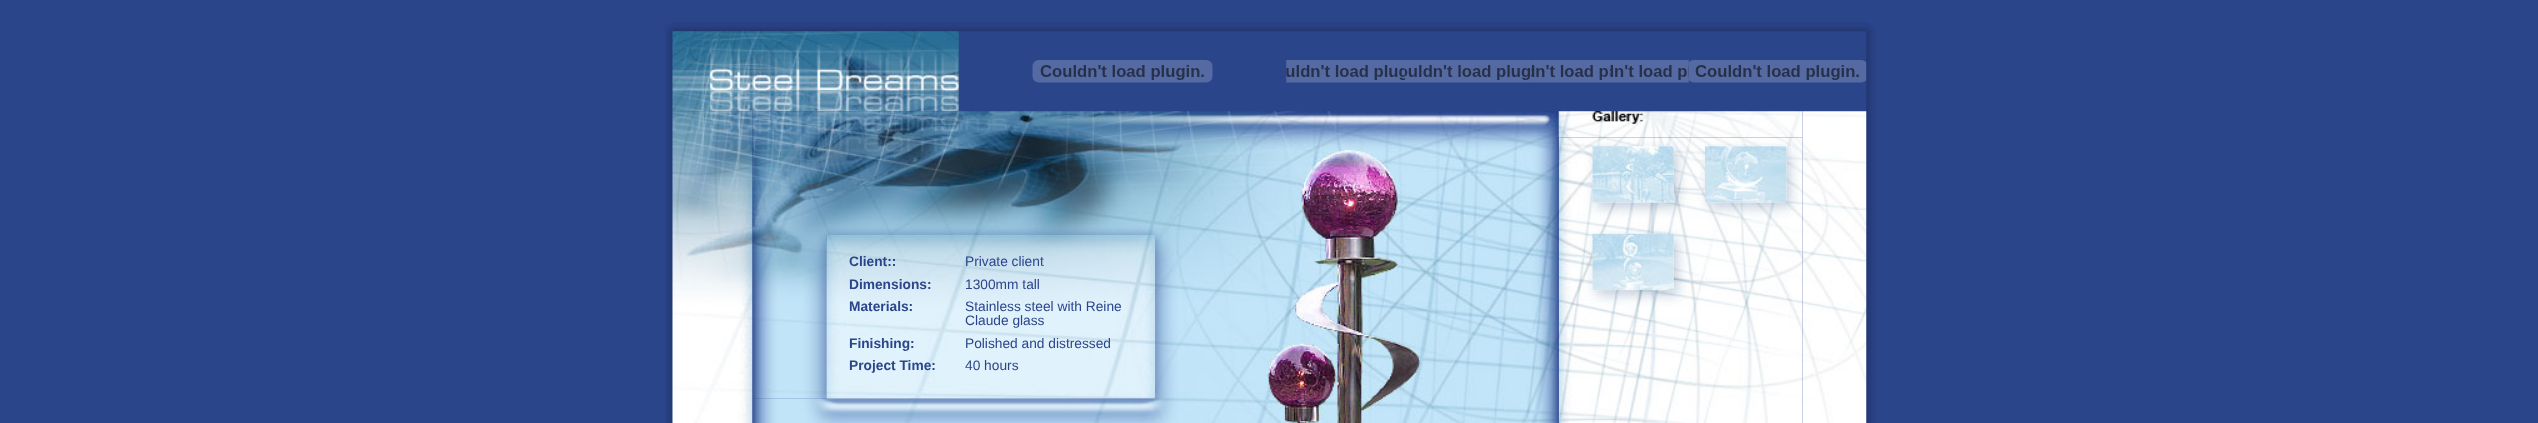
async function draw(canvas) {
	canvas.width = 2538;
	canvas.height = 423;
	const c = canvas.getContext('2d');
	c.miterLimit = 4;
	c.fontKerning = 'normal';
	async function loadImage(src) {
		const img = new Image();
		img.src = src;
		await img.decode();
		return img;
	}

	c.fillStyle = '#2b458b';
	c.fillRect(0, 0, 2538, 423);
	c.drawImage(await loadImage('img1.png'), 664, 24, 8, 7);
	c.drawImage(await loadImage('img2.png'), 672, 22, 1195, 10);
	c.drawImage(await loadImage('img3.png'), 1866, 23, 10, 8);
	c.drawImage(await loadImage('img4.png'), 665, 31, 8, 392);
	c.drawImage(await loadImage('img5.png'), 672, 31, 287, 81);
	c.drawImage(await loadImage('img6.png'), 1032, 60, 181, 23);
	c.drawImage(await loadImage('img7.png'), 1286, 60, 119, 23);
	c.drawImage(await loadImage('img8.png'), 1405, 60, 127, 23);
	c.drawImage(await loadImage('img9.png'), 1531, 60, 79, 23);
	c.drawImage(await loadImage('img10.png'), 1610, 60, 79, 23);
	c.drawImage(await loadImage('img24.png'), 1866, 31, 10, 392);
	c.drawImage(await loadImage('img11.png'), 1688, 60, 179, 23);
	c.drawImage(await loadImage('img12.png'), 672, 111, 81, 312);
	c.drawImage(await loadImage('img13.png'), 752, 111, 403, 124);
	c.drawImage(await loadImage('img15.png'), 826, 235, 329, 164);
	c.drawImage(await loadImage('img14.png'), 752, 235, 75, 164);
	c.font = 'bold 13.75px Liberation Sans';
	c.fillText('Client::', 849, 266);
	c.font = '13.75px Liberation Sans';
	c.fillText('Private client', 965, 266);
	c.font = 'bold 13.75px Liberation Sans';
	c.fillText('Dimensions:', 849, 289);
	c.font = '13.75px Liberation Sans';
	c.fillText('1300mm tall', 965, 289);
	c.font = 'bold 13.75px Liberation Sans';
	c.fillText('Materials:', 849, 311);
	c.font = '13.75px Liberation Sans';
	c.fillText('Stainless steel with Reine', 965, 311);
	c.fillText('Claude glass', 965, 325);
	c.font = 'bold 13.75px Liberation Sans';
	c.fillText('Finishing:', 849, 348);
	c.font = '13.75px Liberation Sans';
	c.fillText('Polished and distressed', 965, 348);
	c.font = 'bold 13.75px Liberation Sans';
	c.fillText('Project Time:', 849, 370);
	c.font = '13.75px Liberation Sans';
	c.fillText('40 hours', 965, 370);
	c.drawImage(await loadImage('img16.png'), 752, 398, 403, 25);
	c.drawImage(await loadImage('img19.png'), 1558, 137, 245, 286);
	c.drawImage(await loadImage('img17.png'), 1155, 111, 404, 312);
	c.drawImage(await loadImage('img18.png'), 1558, 111, 245, 27);
	c.drawImage(await loadImage('img20.png'), 1592, 146, 82, 57);
	c.drawImage(await loadImage('img21.png'), 1705, 146, 82, 57);
	c.drawImage(await loadImage('img22.png'), 1592, 233, 82, 57);
	c.drawImage(await loadImage('img23.png'), 1802, 111, 65, 312);
}

draw(document.querySelector('canvas'));
